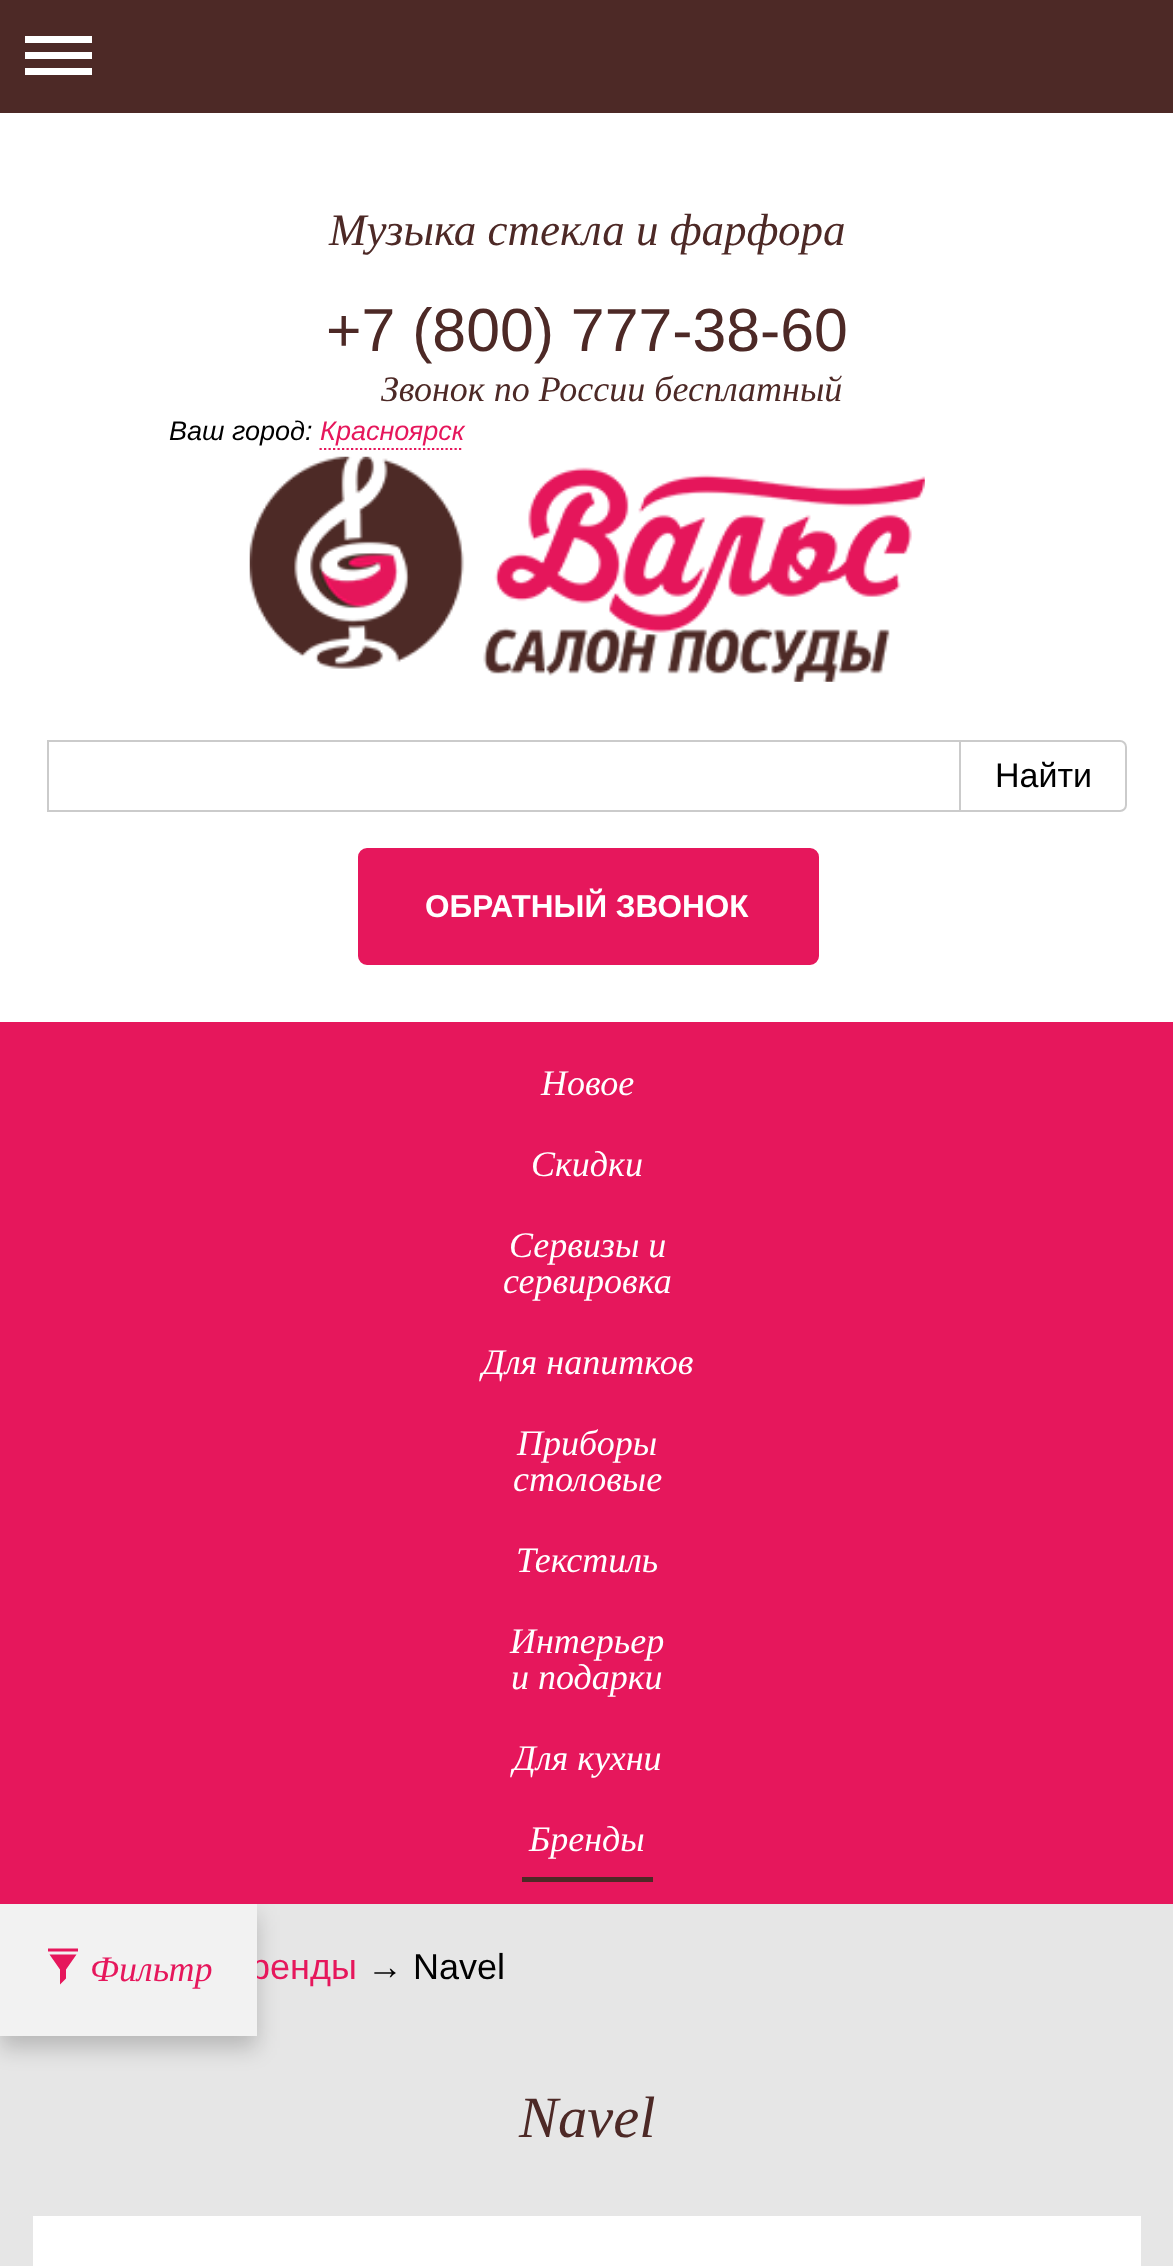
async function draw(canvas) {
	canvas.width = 1173;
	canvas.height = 2266;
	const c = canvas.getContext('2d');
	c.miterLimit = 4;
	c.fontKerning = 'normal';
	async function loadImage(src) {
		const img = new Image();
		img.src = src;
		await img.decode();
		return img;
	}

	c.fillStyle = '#e6e6e6';
	c.fillRect(0, 0, 1173, 2266);
	for (const [x, y, w, h, color] of [
		[0, 113, 1173, 909, '#fff'],
		[0, 0, 1173, 113, '#4d2926'],
		[25, 36, 67, 7, '#fff'],
		[25, 52, 67, 7, '#fff'],
		[25, 68, 67, 7, '#fff'],
	]) {
		c.fillStyle = color;
		c.fillRect(x, y, w, h);
	}
	c.font = 'italic 45px Liberation Serif';
	c.fillStyle = '#4d2926';
	c.fillText('Музыка стекла и фарфора', 329, 245);
	c.font = '60.75px Liberation Sans';
	c.fillText('+7 (800) 777-38-60', 326, 351);
	c.font = 'italic 36px Liberation Serif';
	c.fillText('Звонок по России бесплатный', 381, 401);
	c.font = 'italic 27px Liberation Sans';
	c.fillStyle = '#000';
	c.fillText('Ваш город:', 169, 440);
	c.fillStyle = '#e6175c';
	c.fillText('Красноярск', 320, 440);
	c.beginPath();
	c.moveTo(319.5, 449);
	c.lineTo(463.5, 449);
	c.strokeStyle = '#e6175c';
	c.lineWidth = 2.2;
	c.setLineDash([2.25, 2.25]);
	c.stroke();
	c.drawImage(await loadImage('img1.png'), 249, 456, 676, 226);
	c.strokeStyle = '#cbcbcb';
	c.lineWidth = 2;
	c.setLineDash([]);
	c.strokeRect(48, 741, 912, 70);
	c.fillStyle = '#fff';
	c.beginPath();
	c.roundRect(960, 741, 166, 70, [0, 6, 6, 0]);
	c.fill();
	c.stroke();
	c.font = '34px Liberation Sans';
	c.fillStyle = '#000';
	c.fillText('Найти', 995, 787);
	c.fillStyle = '#e6175c';
	c.beginPath();
	c.roundRect(359, 849, 459, 115, 8);
	c.fill();
	c.strokeStyle = '#e6175c';
	c.stroke();
	c.font = 'bold 31.5px Liberation Sans';
	c.fillStyle = '#fff';
	c.fillText('ОБРАТНЫЙ ЗВОНОК', 425, 917);
	c.fillStyle = '#e6175c';
	c.fillRect(0, 1022, 1173, 882);
	c.font = 'italic 36px Liberation Serif';
	c.fillStyle = '#fff';
	for (const [text, x, y] of [
		['Новое', 541, 1095],
		['Скидки', 531, 1176],
		['Сервизы и', 509, 1257],
		['сервировка', 503, 1293],
		['Для напитков', 482, 1374],
		['Приборы', 517, 1455],
		['столовые', 513, 1491],
		['Текстиль', 516, 1572],
		['Интерьер', 510, 1653],
		['и подарки', 511, 1689],
		['Для кухни', 513, 1770],
		['Бренды', 529, 1851],
	]) {
		c.fillText(text, x, y);
	}
	c.fillStyle = '#4d2926';
	c.fillRect(522, 1877, 131, 5);
	c.save();
	c.beginPath();
	c.rect(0, 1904, 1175, 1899);
	c.clip();
	c.fillStyle = '#00000033';
	c.filter = 'blur(11px)';
	c.beginPath();
	c.rect(0, 1915, 257, 133);
	c.fill();
	c.filter = 'none';
	c.restore();
	c.font = '36px Liberation Sans';
	c.fillStyle = '#e6175c';
	c.fillText('ренды', 250, 1979);
	c.fillStyle = '#f2f2f2';
	c.fillRect(0, 1904, 257, 132);
	c.fillStyle = '#e6175c';
	c.beginPath();
	c.moveTo(48, 1951.5);
	c.lineTo(48, 1948.5);
	c.lineTo(78, 1948.5);
	c.lineTo(78, 1951.5);
	c.closePath();
	c.moveTo(49.5, 1954.5);
	c.lineTo(76.5, 1954.5);
	c.lineTo(66, 1969.5);
	c.lineTo(66, 1978.5);
	c.lineTo(60, 1984.5);
	c.lineTo(60, 1969.5);
	c.closePath();
	c.fill();
	c.font = 'italic 36px Liberation Serif';
	c.fillText('Фильтр', 90, 1981);
	c.font = '36px Liberation Sans';
	c.fillStyle = '#000';
	c.fillText('→ Navel', 367, 1979);
	c.font = 'italic 58.5px Liberation Serif';
	c.fillStyle = '#4d2926';
	c.fillText('Navel', 519, 2137);
	c.fillStyle = '#fff';
	c.fillRect(33, 2216, 1108, 50);
}

draw(document.querySelector('canvas'));
